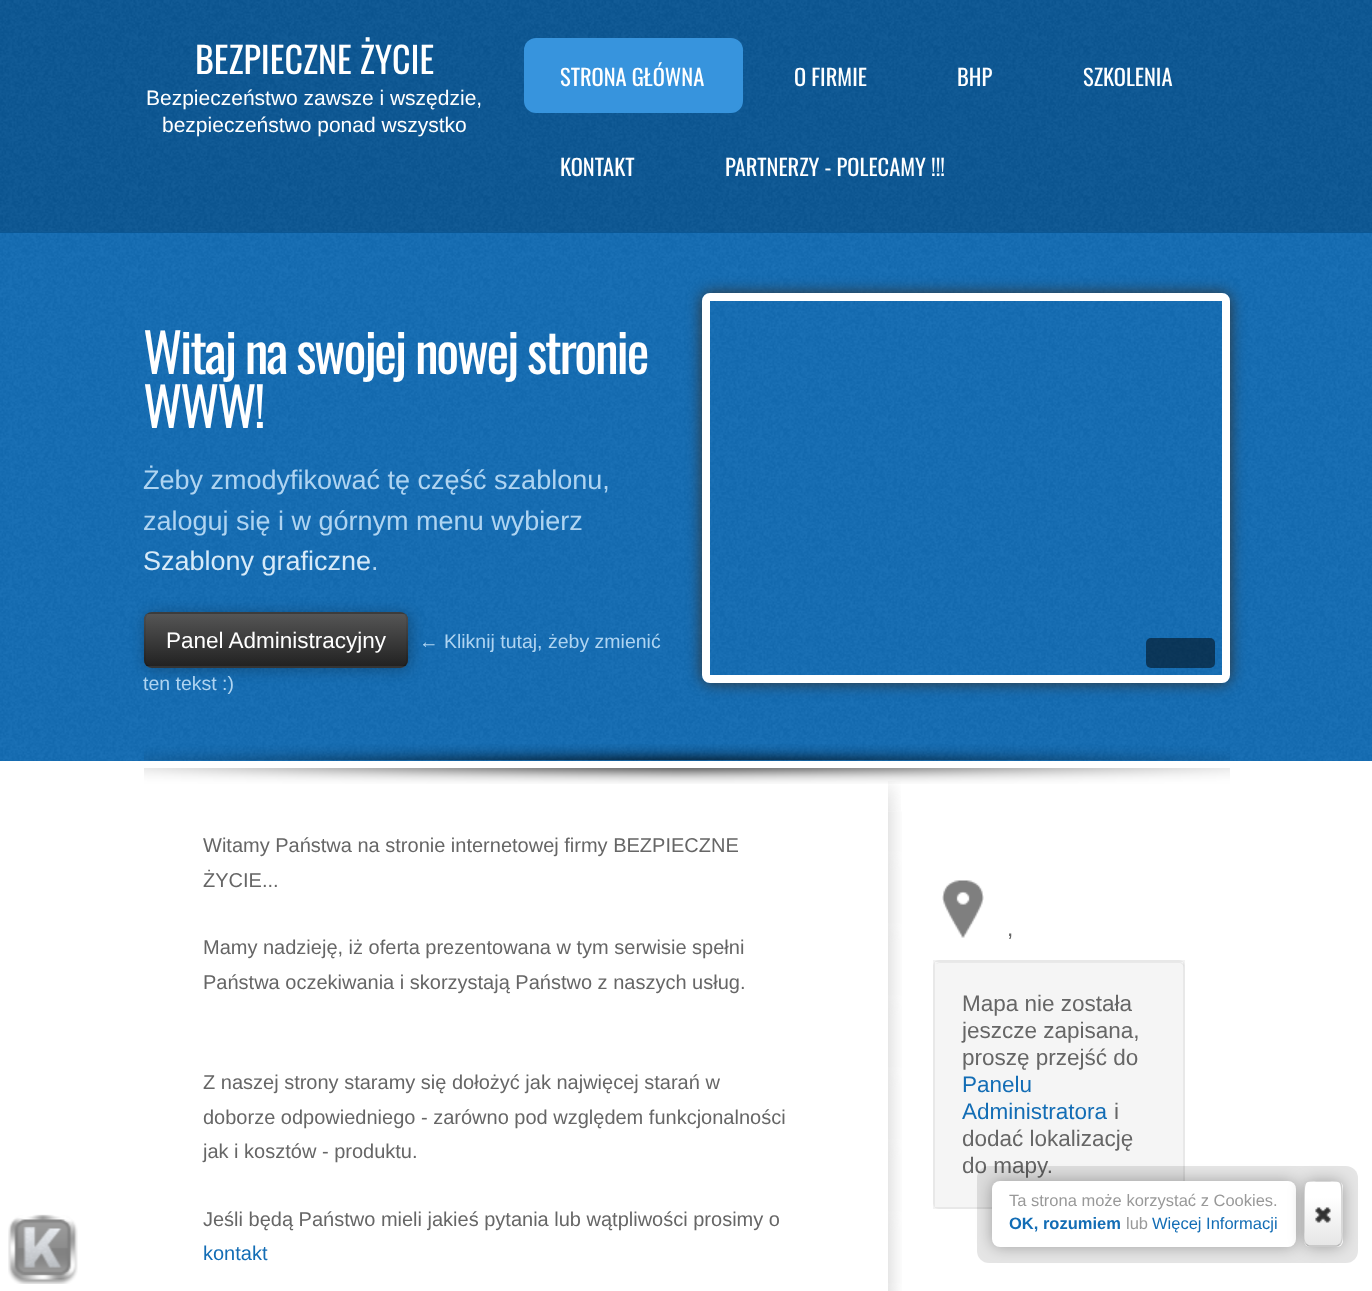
async function draw(canvas) {
	canvas.width = 1372;
	canvas.height = 1291;
	const c = canvas.getContext('2d');
	c.miterLimit = 4;
	c.fontKerning = 'normal';
	async function loadImage(src) {
		const img = new Image();
		img.src = src;
		await img.decode();
		return img;
	}
	let gradient;

	c.fillStyle = '#fff';
	c.fillRect(0, 0, 1372, 1291);
	c.fillStyle = '#0b5794';
	c.fillRect(0, 0, 1372, 233);
	c.drawImage(await loadImage('img1.png'), 0, 0, 1372, 232);
	c.font = '36px Oswald';
	c.fillStyle = '#fff';
	c.fillText('BEZPIECZNE ŻYCIE', 195, 74);
	c.font = '21px Liberation Sans';
	c.fillText('Bezpieczeństwo zawsze i wszędzie,', 146, 105);
	c.fillText('bezpieczeństwo ponad wszystko', 162, 132);
	c.fillStyle = '#3794dd';
	c.beginPath();
	c.roundRect(524, 38, 219, 75, 12);
	c.fill();
	c.font = '22.5px Oswald';
	c.fillStyle = '#fff';
	for (const [text, x, y] of [
		['STRONA GŁÓWNA', 560, 86],
		['O FIRMIE', 794, 86],
		['BHP', 957, 86],
		['SZKOLENIA', 1083, 86],
		['KONTAKT', 560, 176],
		['PARTNERZY - POLECAMY !!!', 725, 176],
	]) {
		c.fillText(text, x, y);
	}
	c.fillStyle = '#136db5';
	c.fillRect(0, 233, 1372, 528);
	c.drawImage(await loadImage('img2.png'), 0, 233, 1372, 528);
	c.drawImage(await loadImage('img3.png'), 144, 744, 1086, 17);
	c.letterSpacing = '-2.25px';
	c.font = '54px Oswald';
	c.fillStyle = '#fff';
	c.fillText('Witaj na swojej nowej stronie', 143, 374);
	c.fillText('WWW!', 143, 428);
	c.letterSpacing = '0px';
	c.font = '27px Liberation Sans';
	c.fillStyle = '#afd4f1';
	c.fillText('Żeby zmodyfikować tę część szablonu,', 143, 489);
	c.fillText('zaloguj się i w górnym menu wybierz', 143, 530);
	c.fillStyle = '#d7eaf8';
	c.fillText('Szablony graficzne', 143, 570);
	c.fillStyle = '#afd4f1';
	c.fillText('.', 371, 570);
	c.fillStyle = '#0000004d';
	c.filter = 'blur(7.5px)';
	c.beginPath();
	c.roundRect(146, 614, 264, 55, 8);
	c.fill();
	c.filter = 'none';
	c.fillStyle = '#414141';
	c.beginPath();
	c.roundRect(144, 612, 264, 56, 8);
	c.fill();
	c.save();
	c.beginPath();
	c.roundRect(144, 612, 264, 56, 8);
	c.clip();
	gradient = c.createLinearGradient(276, 614, 276, 666);
	gradient.addColorStop(0, '#555');
	gradient.addColorStop(1, '#222');
	c.fillStyle = gradient;
	c.fillRect(144, 614, 264, 52);
	c.restore();
	c.beginPath();
	c.moveTo(405.5, 665);
	c.bezierCurveTo(404, 666, 402.5, 667, 400.5, 667);
	c.lineTo(151.5, 667);
	c.bezierCurveTo(149.5, 667, 148, 666, 146.5, 665);
	c.strokeStyle = '#00000040';
	c.lineWidth = 1.5;
	c.stroke();
	c.beginPath();
	c.moveTo(146.5, 665);
	c.bezierCurveTo(145.5, 663.5, 145, 662, 145, 660);
	c.lineTo(145, 619.5);
	c.bezierCurveTo(145, 617.5, 145.5, 616, 146.5, 614.5);
	c.bezierCurveTo(148, 613.5, 149.5, 613, 151.5, 613);
	c.lineTo(400.5, 613);
	c.bezierCurveTo(402.5, 613, 404, 613.5, 405.5, 614.5);
	c.bezierCurveTo(406.5, 616, 407, 617.5, 407, 619.5);
	c.lineTo(407, 660);
	c.bezierCurveTo(407, 662, 406.5, 663.5, 405.5, 665);
	c.strokeStyle = '#0000001a';
	c.stroke();
	c.font = '22.5px Liberation Sans';
	c.fillStyle = '#fff';
	c.fillText('Panel Administracyjny', 166, 648);
	c.font = '19.5px Liberation Sans';
	c.fillStyle = '#afd4f1';
	c.fillText('← Kliknij tutaj, żeby zmienić', 419, 648);
	c.fillText('ten tekst :)', 143, 690);
	c.save();
	c.beginPath();
	c.moveTo(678, 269);
	c.lineTo(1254, 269);
	c.lineTo(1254, 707);
	c.lineTo(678, 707);
	c.closePath();
	c.moveTo(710, 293);
	c.lineTo(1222, 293);
	c.bezierCurveTo(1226.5, 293, 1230, 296.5, 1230, 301);
	c.lineTo(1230, 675);
	c.bezierCurveTo(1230, 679.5, 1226.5, 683, 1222, 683);
	c.lineTo(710, 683);
	c.bezierCurveTo(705.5, 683, 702, 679.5, 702, 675);
	c.lineTo(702, 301);
	c.bezierCurveTo(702, 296.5, 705.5, 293, 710, 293);
	c.closePath();
	c.clip('evenodd');
	c.fillStyle = '#333';
	c.filter = 'blur(7.5px)';
	c.beginPath();
	c.roundRect(702, 293, 528, 390, 8);
	c.fill();
	c.filter = 'none';
	c.restore();
	c.beginPath();
	c.roundRect(706, 297, 520, 382, 4);
	c.strokeStyle = '#fff';
	c.lineWidth = 8;
	c.stroke();
	c.fillStyle = '#00000080';
	c.beginPath();
	c.roundRect(1146, 638, 69, 30, 5);
	c.fill();
	c.drawImage(await loadImage('img4.png'), 144, 768, 1086, 16);
	c.font = '20px Liberation Sans';
	c.fillStyle = '#666';
	for (const [text, x, y] of [
		['Witamy Państwa na stronie internetowej firmy BEZPIECZNE', 203, 852],
		['ŻYCIE...', 203, 887],
		['Mamy nadzieję, iż oferta prezentowana w tym serwisie spełni', 203, 954],
		['Państwa oczekiwania i skorzystają Państwo z naszych usług.', 203, 989],
		['Z naszej strony staramy się dołożyć jak najwięcej starań w', 203, 1089],
		['doborze odpowiedniego - zarówno pod względem funkcjonalności', 203, 1124],
		['jak i kosztów - produktu.', 203, 1158],
		['Jeśli będą Państwo mieli jakieś pytania lub wątpliwości prosimy o', 203, 1226],
	]) {
		c.fillText(text, x, y);
	}
	c.fillStyle = '#136db5';
	c.fillText('kontakt', 203, 1260);
	c.drawImage(await loadImage('img5.png'), 888, 781, 13, 31);
	c.drawImage(await loadImage('img6.png'), 888, 811, 14, 480);
	c.drawImage(await loadImage('img7.png'), 942, 880, 42, 58);
	c.font = '22.5px Liberation Sans';
	c.fillStyle = '#666';
	c.fillText(',', 1007, 936);
	c.fillStyle = '#f5f5f5';
	c.beginPath();
	c.roundRect(933, 960, 252, 249, 6);
	c.fill();
	c.fillStyle = '#e9e9e9';
	c.beginPath();
	c.moveTo(939, 963);
	c.lineTo(1179, 963);
	c.bezierCurveTo(1181, 963, 1184, 965, 1184, 968);
	c.lineTo(1184, 967);
	c.bezierCurveTo(1184, 964, 1182, 962, 1179, 962);
	c.lineTo(940, 962);
	c.bezierCurveTo(938, 962, 937, 963, 936, 964);
	c.closePath();
	c.fill();
	c.strokeStyle = '#0000000d';
	c.lineWidth = 2;
	c.strokeRect(934, 961, 250, 247);
	c.fillStyle = '#666';
	for (const [text, x, y] of [
		['Mapa nie została', 962, 1011],
		['jeszcze zapisana,', 962, 1038],
		['proszę przejść do', 962, 1065],
	]) {
		c.fillText(text, x, y);
	}
	c.fillStyle = '#136db5';
	c.fillText('Panelu', 962, 1092);
	c.fillText('Administratora', 962, 1119);
	c.fillStyle = '#666';
	for (const [text, x, y] of [
		['i', 1114, 1119],
		['dodać lokalizację', 962, 1146],
		['do mapy.', 962, 1173],
	]) {
		c.fillText(text, x, y);
	}
	c.drawImage(await loadImage('img8.png'), 8, 1214, 70, 70);
	c.fillStyle = '#0000001a';
	c.beginPath();
	c.roundRect(977, 1166, 381, 97, 12);
	c.fill();
	c.fillStyle = '#0000004d';
	c.filter = 'blur(7.5px)';
	c.beginPath();
	c.roundRect(992, 1181, 304, 66, 8);
	c.fill();
	c.filter = 'none';
	c.fillStyle = '#fff';
	c.beginPath();
	c.roundRect(992, 1181, 304, 66, 8);
	c.fill();
	c.font = '16.5px Liberation Sans';
	c.fillStyle = '#999';
	c.fillText('Ta strona może korzystać z Cookies.', 1009, 1206);
	c.font = 'bold 16.5px Liberation Sans';
	c.fillStyle = '#136db5';
	c.fillText('OK, rozumiem', 1009, 1229);
	c.font = '16.5px Liberation Sans';
	c.fillStyle = '#999';
	c.fillText('lub', 1126, 1229);
	c.fillStyle = '#136db5';
	c.fillText('Więcej Informacji', 1152, 1229);
	c.fillStyle = '#0000004d';
	c.filter = 'blur(7.5px)';
	c.beginPath();
	c.roundRect(1304, 1181, 39, 66, 8);
	c.fill();
	c.filter = 'none';
	c.fillStyle = '#fafafa';
	c.beginPath();
	c.roundRect(1304, 1181, 39, 66, 6);
	c.fill();
	c.save();
	c.beginPath();
	c.roundRect(1304, 1181, 39, 66, 6);
	c.clip();
	gradient = c.createLinearGradient(1323, 1182, 1323, 1245);
	gradient.addColorStop(0, '#fff');
	gradient.addColorStop(0.25, '#fff');
	gradient.addColorStop(1, '#e6e6e6');
	c.fillStyle = gradient;
	c.fillRect(1305, 1182, 36, 63);
	c.restore();
	c.beginPath();
	c.moveTo(1340, 1244);
	c.bezierCurveTo(1339, 1245, 1338, 1246, 1336.5, 1246);
	c.lineTo(1309.5, 1246);
	c.bezierCurveTo(1308, 1246, 1307, 1245, 1306, 1244);
	c.strokeStyle = '#bbb';
	c.lineWidth = 1.5;
	c.stroke();
	c.save();
	c.beginPath();
	c.rect(1304, 1181, 39, 66);
	c.clip();
	c.beginPath();
	c.moveTo(1306, 1244);
	c.bezierCurveTo(1303, 1241.5, 1304, 1234, 1304, 1231.5);
	c.lineTo(1304, 1195.5);
	c.bezierCurveTo(1304, 1178, 1305, 1181, 1323, 1181);
	c.bezierCurveTo(1341, 1181, 1342, 1178, 1342, 1195.5);
	c.lineTo(1342, 1231.5);
	c.bezierCurveTo(1342, 1234, 1343, 1241.5, 1340, 1244);
	c.strokeStyle = '#ccc';
	c.stroke();
	c.restore();
	c.drawImage(await loadImage('img9.png'), 1315, 1207, 16, 16);
}

draw(document.querySelector('canvas'));
